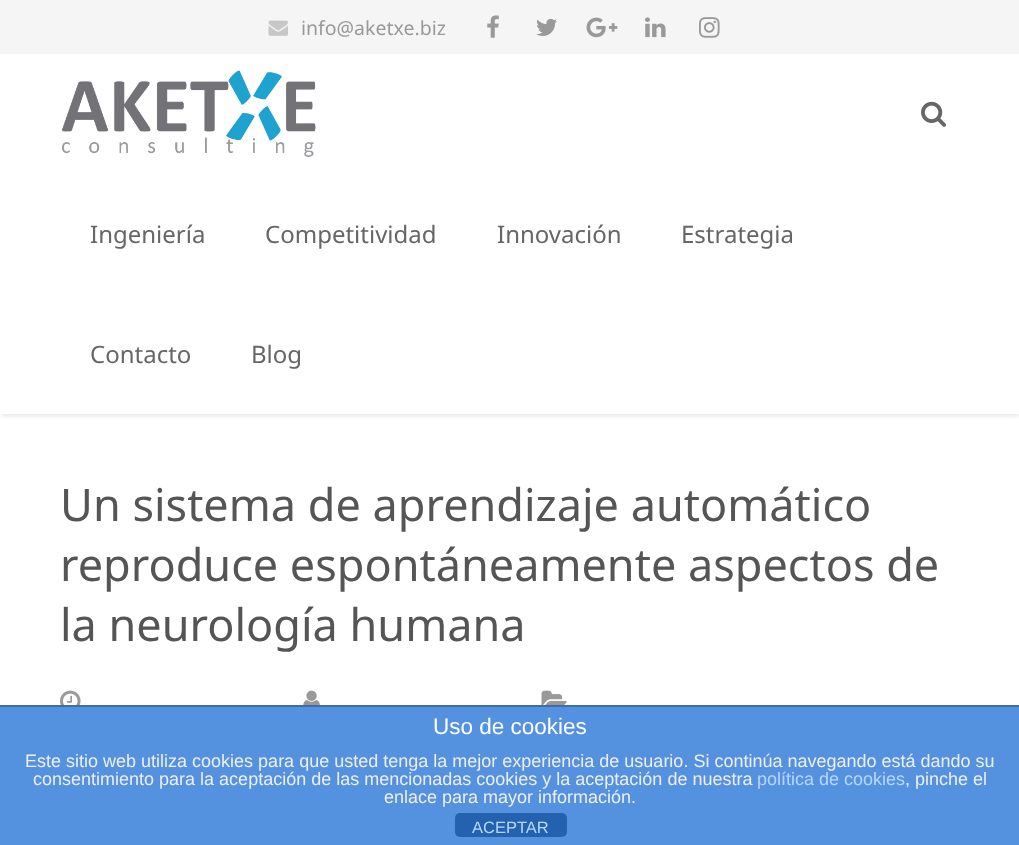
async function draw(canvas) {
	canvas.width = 1019;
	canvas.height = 845;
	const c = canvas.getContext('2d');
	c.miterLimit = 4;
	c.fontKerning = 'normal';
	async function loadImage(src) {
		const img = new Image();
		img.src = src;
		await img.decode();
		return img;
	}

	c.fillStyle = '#fff';
	c.fillRect(0, 0, 1019, 845);
	c.fillStyle = '#f5f5f5';
	c.fillRect(0, 0, 1019, 54);
	c.drawImage(await loadImage('img1.png'), 268, 20, 20, 16);
	c.font = '19.5px Noto Sans';
	c.fillStyle = '#999';
	c.fillText('info@aketxe.biz', 301, 35);
	c.drawImage(await loadImage('img2.png'), 487, 15, 12, 23);
	c.drawImage(await loadImage('img3.png'), 536, 18, 21, 18);
	c.drawImage(await loadImage('img4.png'), 586, 17, 32, 21);
	c.drawImage(await loadImage('img5.png'), 645, 17, 21, 21);
	c.drawImage(await loadImage('img6.png'), 699, 17, 21, 21);
	c.fillStyle = '#0000001a';
	c.filter = 'blur(2px)';
	c.beginPath();
	c.rect(2, 59, 1017, 357);
	c.fill();
	c.filter = 'none';
	c.fillStyle = '#fff';
	c.fillRect(0, 56, 1019, 358);
	c.drawImage(await loadImage('img7.png'), 62, 70, 254, 87);
	c.drawImage(await loadImage('img8.png'), 921, 101, 25, 26);
	c.font = '24px Noto Sans';
	c.fillStyle = '#666';
	for (const [text, x, y] of [
		['Ingeniería', 90, 243],
		['Competitividad', 265, 243],
		['Innovación', 497, 243],
		['Estrategia', 681, 243],
		['Contacto', 90, 363],
		['Blog', 251, 363],
	]) {
		c.fillText(text, x, y);
	}
	c.font = '45px Noto Sans';
	c.fillStyle = '#555';
	for (const [text, x, y] of [
		['Un sistema de aprendizaje automático', 60, 521],
		['reproduce espontáneamente aspectos de', 60, 581],
		['la neurología humana', 60, 641],
	]) {
		c.fillText(text, x, y);
	}
	c.drawImage(await loadImage('img9.png'), 60, 690, 21, 15);
	c.drawImage(await loadImage('img10.png'), 303, 690, 17, 15);
	c.drawImage(await loadImage('img11.png'), 541, 690, 26, 15);
	c.fillStyle = '#5492e0';
	c.fillRect(0, 707, 1019, 138);
	c.fillStyle = '#3f6da7';
	c.fillRect(0, 705, 1019, 2);
	c.font = '22.5px Liberation Sans';
	c.fillStyle = '#fff';
	c.fillText('Uso de cookies', 433, 734);
	c.font = '18px Liberation Sans';
	c.fillStyle = '#eee';
	c.fillText('Este sitio web utiliza cookies para que usted tenga la mejor experiencia de usuario. Si continúa navegando está dando su', 25, 767);
	c.fillText('consentimiento para la aceptación de las mencionadas cookies y la aceptación de nuestra', 33, 785);
	c.fillStyle = '#b7d7ff';
	c.fillText('política de cookies', 757, 785);
	c.fillStyle = '#eee';
	c.fillText(', pinche el', 905, 785);
	c.fillText('enlace para mayor información.', 384, 803);
	c.fillStyle = '#2462b0';
	c.beginPath();
	c.roundRect(455, 813, 112, 24, 5);
	c.fill();
	c.font = '16.5px Liberation Sans';
	c.fillStyle = '#b7d7ff';
	c.fillText('ACEPTAR', 472, 833);
}

draw(document.querySelector('canvas'));
